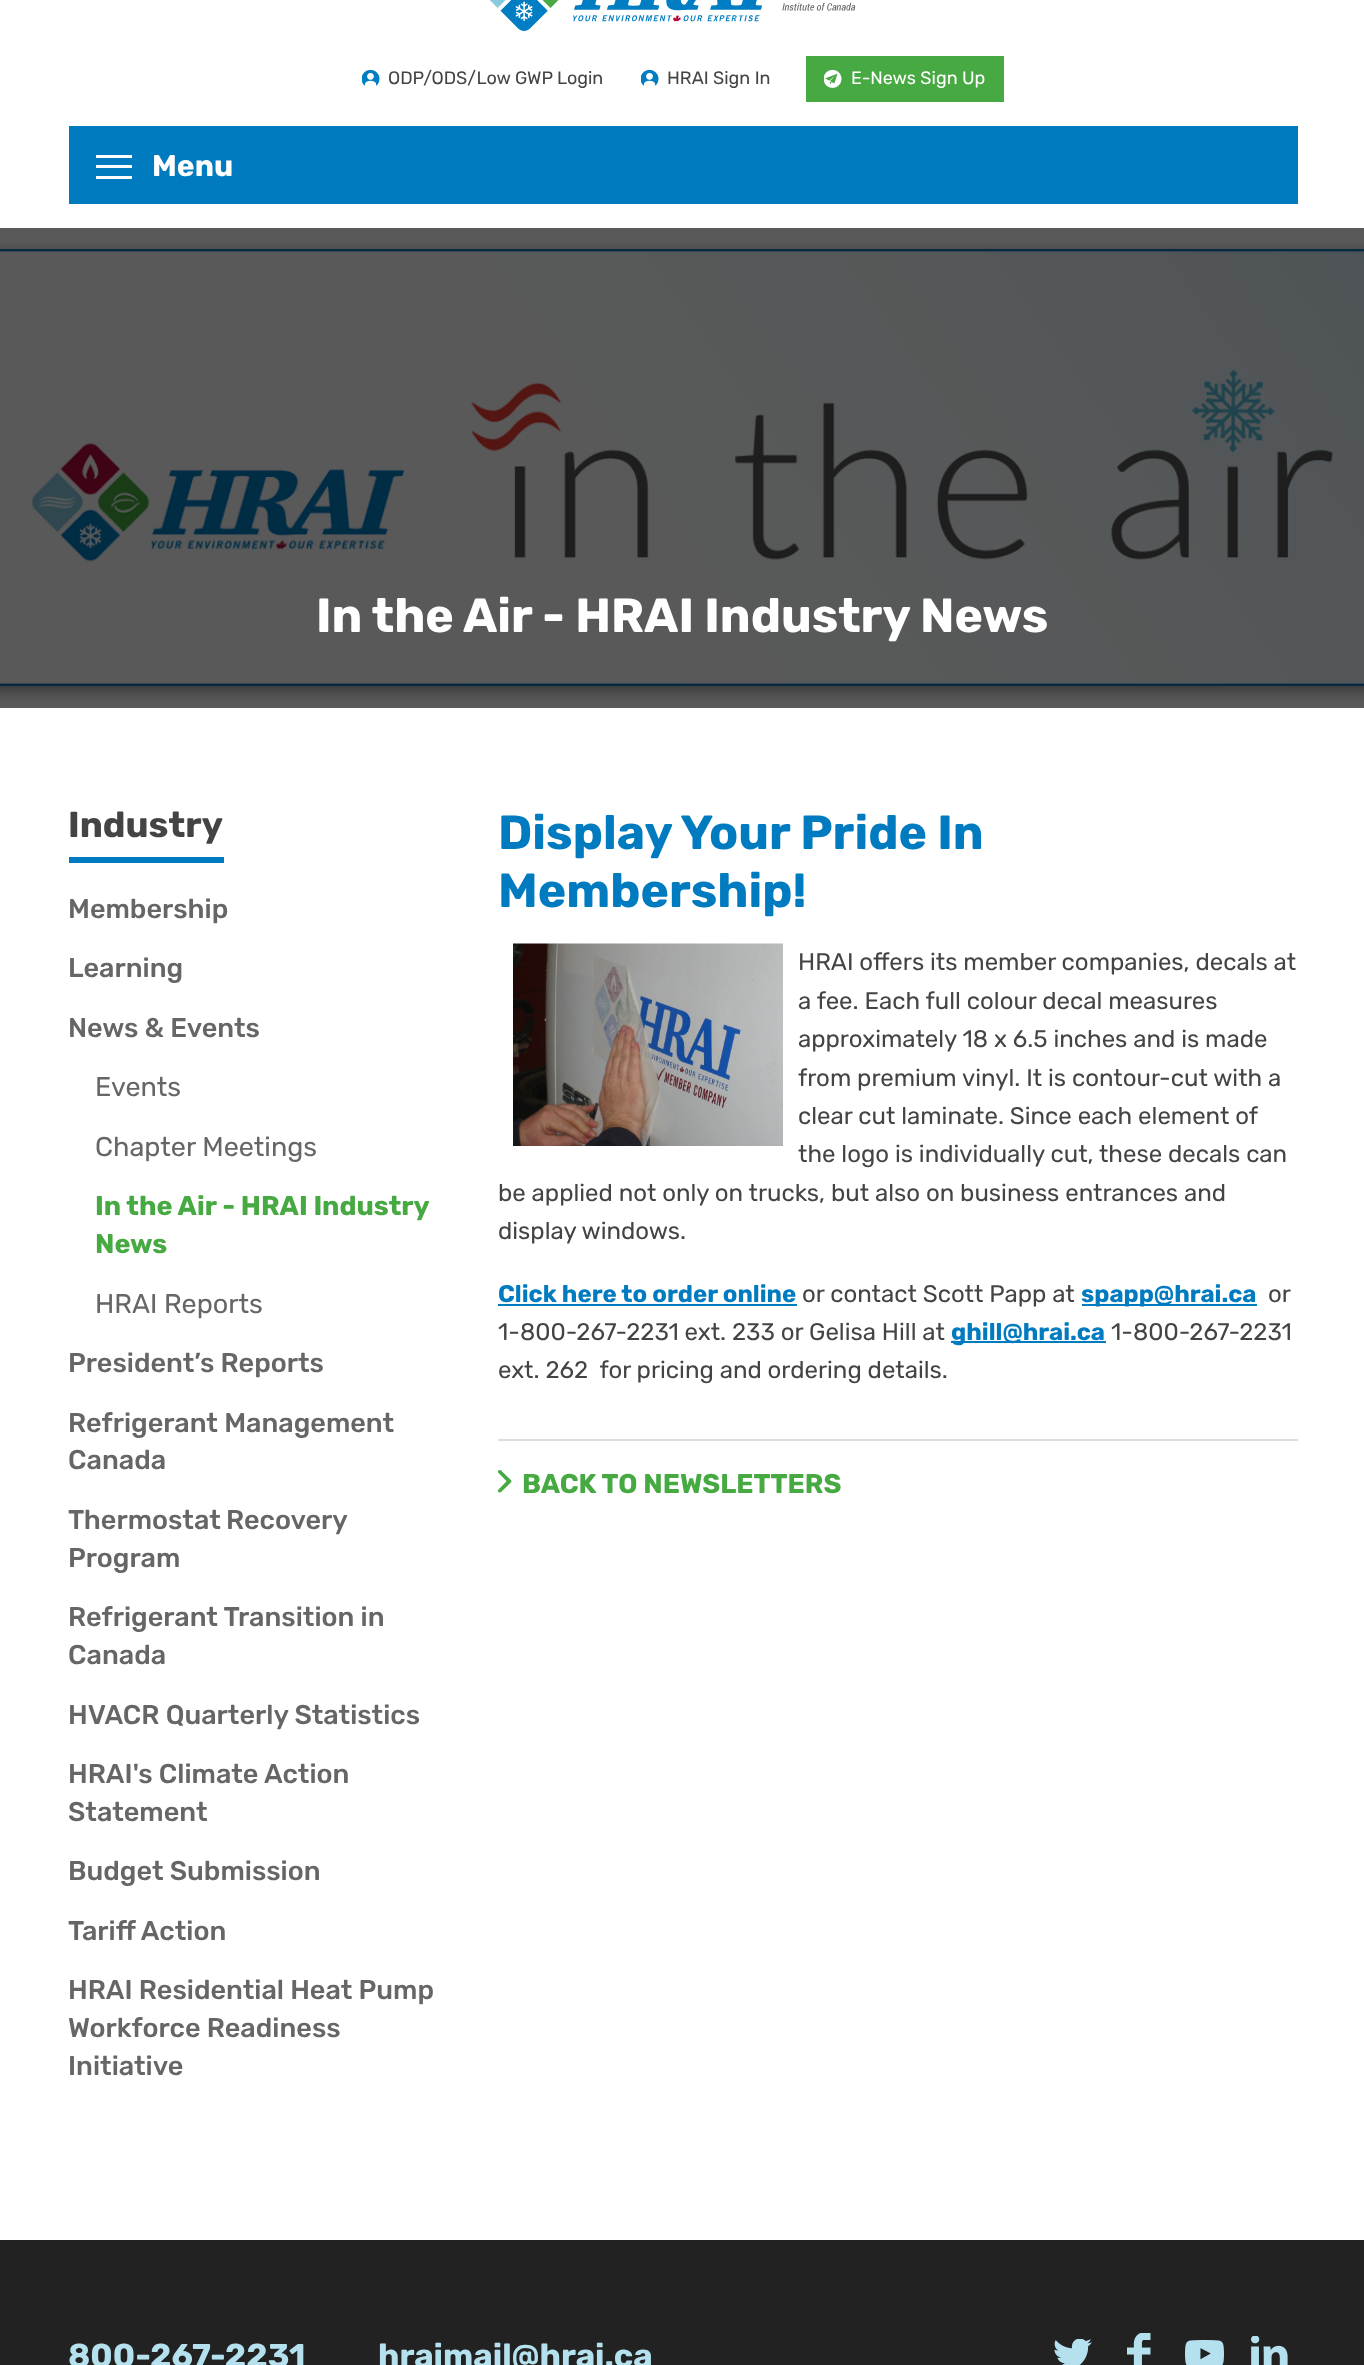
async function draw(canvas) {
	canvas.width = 1364;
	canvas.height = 2365;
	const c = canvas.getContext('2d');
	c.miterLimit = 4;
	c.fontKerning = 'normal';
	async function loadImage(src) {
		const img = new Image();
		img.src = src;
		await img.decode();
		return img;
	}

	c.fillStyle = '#fff';
	c.fillRect(0, 0, 1364, 2365);
	c.drawImage(await loadImage('img1.png'), 489, 0, 367, 31);
	c.drawImage(await loadImage('img2.png'), 362, 69, 18, 17);
	c.font = '18px Rubik';
	c.fillStyle = '#444';
	c.fillText('ODP/ODS/Low GWP Login', 388, 84);
	c.drawImage(await loadImage('img2.png'), 641, 69, 18, 17);
	c.fillText('HRAI Sign In', 667, 84);
	c.fillStyle = '#47a942';
	c.fillRect(806, 56, 198, 46);
	c.drawImage(await loadImage('img3.png'), 824, 69, 18, 19);
	c.fillStyle = '#fff';
	c.fillText('E-News Sign Up', 851, 84);
	for (const [x, y, w, h, color] of [
		[69, 126, 1229, 78, '#007bc0'],
		[96, 165, 36, 3, '#fff'],
		[96, 155, 36, 3, '#fff'],
		[96, 176, 36, 3, '#fff'],
	]) {
		c.fillStyle = color;
		c.fillRect(x, y, w, h);
	}
	c.font = 'bold 30px Rubik';
	c.fillText('Menu', 152, 176);
	c.drawImage(await loadImage('img4.png'), 0, 228, 1364, 480);
	c.font = 'bold 48px Rubik';
	c.fillText('In the Air - HRAI Industry News', 316, 632);
	c.fillStyle = '#007bc0';
	c.fillRect(69, 857, 155, 6);
	c.font = 'bold 36px Rubik';
	c.fillStyle = '#444';
	c.fillText('Industry', 68, 837);
	c.font = '500 27px Rubik';
	c.fillStyle = '#666';
	for (const [text, x, y] of [
		['Membership', 68, 918],
		['Learning', 68, 977],
		['News & Events', 68, 1037],
	]) {
		c.fillText(text, x, y);
	}
	c.font = '27px Rubik';
	c.fillText('Events', 95, 1096);
	c.fillText('Chapter Meetings', 95, 1156);
	c.font = 'bold 27px Rubik';
	c.fillStyle = '#47a942';
	c.fillText('In the Air - HRAI Industry', 95, 1215);
	c.fillText('News', 95, 1253);
	c.font = '27px Rubik';
	c.fillStyle = '#666';
	c.fillText('HRAI Reports', 95, 1313);
	c.font = '500 27px Rubik';
	for (const [text, x, y] of [
		['President’s Reports', 68, 1372],
		['Refrigerant Management', 68, 1432],
		['Canada', 68, 1469],
	]) {
		c.fillText(text, x, y);
	}
	c.wordSpacing = '-1px';
	c.fillText('Thermostat Recovery', 68, 1529);
	c.wordSpacing = '0px';
	for (const [text, x, y] of [
		['Program', 68, 1567],
		['Refrigerant Transition in', 68, 1626],
		['Canada', 68, 1664],
		['HVACR Quarterly Statistics', 68, 1724],
		['HRAI\'s Climate Action', 68, 1783],
		['Statement', 68, 1821],
		['Budget Submission', 68, 1880],
		['Tariff Action', 68, 1940],
		['HRAI Residential Heat Pump', 68, 1999],
		['Workforce Readiness', 68, 2037],
		['Initiative', 68, 2075],
	]) {
		c.fillText(text, x, y);
	}
	c.font = 'bold 48px Rubik';
	c.fillStyle = '#007bc0';
	c.fillText('Display Your Pride In', 498, 849);
	c.fillText('Membership!', 498, 907);
	c.drawImage(await loadImage('img5.png'), 513, 943, 270, 203);
	c.font = '24px Rubik';
	c.fillStyle = '#444';
	for (const [text, x, y] of [
		['HRAI offers its member companies, decals at', 798, 970],
		['a fee. Each full colour decal measures', 798, 1009],
		['approximately 18 x 6.5 inches and is made', 798, 1047],
		['from premium vinyl. It is contour-cut with a', 798, 1086],
		['clear cut laminate. Since each element of', 798, 1124],
		['the logo is individually cut, these decals can', 798, 1162],
		['be applied not only on trucks, but also on business entrances and', 498, 1201],
		['display windows.', 498, 1239],
	]) {
		c.fillText(text, x, y);
	}
	c.font = 'bold 24px Rubik';
	c.fillStyle = '#007bc0';
	c.fillText('Click here to order online', 498, 1302);
	c.fillRect(498, 1304, 299, 2);
	c.font = '24px Rubik';
	c.fillStyle = '#444';
	c.fillText('or contact Scott Papp at', 802, 1302);
	c.fillStyle = '#007bc0';
	c.fillRect(1082, 1304, 175, 2);
	c.font = 'bold 24px Rubik';
	c.fillText('spapp@hrai.ca', 1081, 1302);
	c.font = '24px Rubik';
	c.fillStyle = '#444';
	c.fillText('or', 1268, 1302);
	c.fillText('1-800-267-2231 ext. 233 or Gelisa Hill at', 498, 1340);
	c.fillStyle = '#007bc0';
	c.fillRect(951, 1341, 155, 2);
	c.font = 'bold 24px Rubik';
	c.fillText('ghill@hrai.ca', 951, 1340);
	c.font = '24px Rubik';
	c.fillStyle = '#444';
	c.fillText('1-800-267-2231', 1111, 1340);
	c.fillText('ext. 262  for pricing and ordering details.', 498, 1378);
	c.fillStyle = '#ddd';
	c.fillRect(498, 1439, 800, 2);
	c.drawImage(await loadImage('img6.png'), 498, 1470, 14, 23);
	c.font = 'bold 27px Rubik';
	c.fillStyle = '#47a942';
	c.fillText('BACK TO NEWSLETTERS', 522, 1493);
	c.fillStyle = '#222';
	c.fillRect(0, 2240, 1364, 125);
	c.font = 'bold 33px Rubik';
	c.fillStyle = '#b5e1ee';
	c.fillText('800-267-2231', 68, 2367);
	c.fillText('hraimail@hrai.ca', 378, 2367);
	c.drawImage(await loadImage('img7.png'), 1054, 2339, 38, 26);
	c.drawImage(await loadImage('img8.png'), 1127, 2333, 24, 32);
	c.drawImage(await loadImage('img9.png'), 1185, 2340, 39, 25);
	c.drawImage(await loadImage('img10.png'), 1251, 2336, 37, 29);
}

draw(document.querySelector('canvas'));
